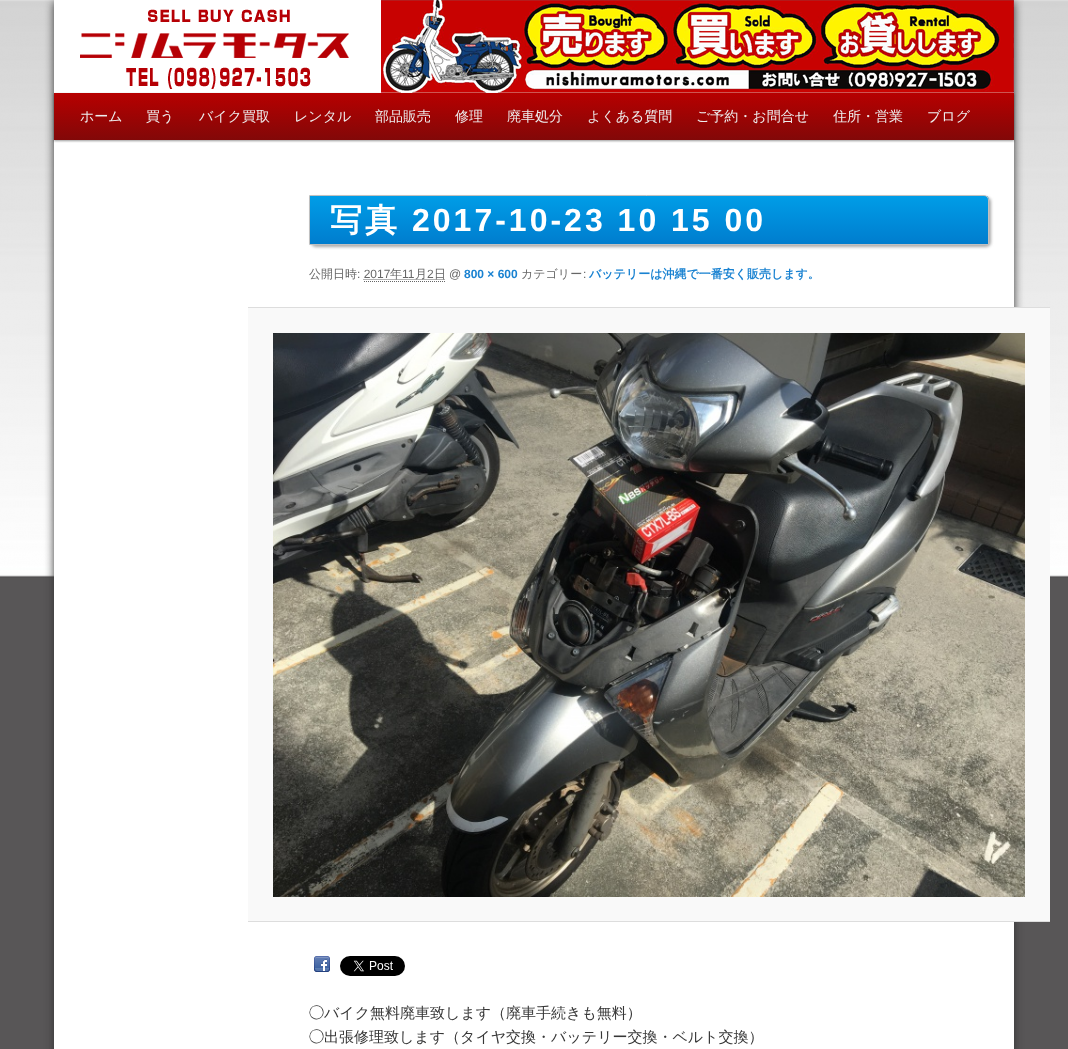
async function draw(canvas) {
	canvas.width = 1068;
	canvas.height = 1049;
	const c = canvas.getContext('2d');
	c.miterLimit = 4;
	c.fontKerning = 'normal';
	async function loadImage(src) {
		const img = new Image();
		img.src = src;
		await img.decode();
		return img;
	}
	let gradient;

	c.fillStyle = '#585657';
	c.fillRect(0, 0, 1068, 1049);
	c.drawImage(await loadImage('img1.png'), 0, 0, 1068, 578);
	c.fillStyle = '#333';
	c.filter = 'blur(5px)';
	c.beginPath();
	c.rect(54, 2, 960, 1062);
	c.fill();
	c.filter = 'none';
	c.fillStyle = '#fff';
	c.fillRect(54, 0, 960, 1049);
	c.drawImage(await loadImage('img2.png'), 80, 9, 269, 80);
	c.drawImage(await loadImage('img3.png'), 381, 0, 633, 93);
	c.fillStyle = '#00000066';
	c.filter = 'blur(1px)';
	c.beginPath();
	c.rect(54, 94, 960, 47);
	c.fill();
	c.filter = 'none';
	gradient = c.createLinearGradient(534, 93, 534, 140);
	gradient.addColorStop(0, '#b70000');
	gradient.addColorStop(1, '#820808');
	c.fillStyle = gradient;
	c.fillRect(54, 93, 960, 47);
	c.font = '500 14px WenQuanYi Zen Hei';
	c.fillStyle = '#eee';
	for (const [text, x, y] of [
		['ホーム', 80, 121],
		['買う', 146, 121],
		['バイク買取', 199, 121],
		['レンタル', 294, 121],
		['部品販売', 375, 121],
		['修理', 455, 121],
		['廃車処分', 507, 121],
		['よくある質問', 587, 121],
		['ご予約・お問合せ', 696, 121],
		['住所・営業', 833, 121],
		['ブログ', 927, 121],
	]) {
		c.fillText(text, x, y);
	}
	c.fillStyle = '#aaa';
	c.filter = 'blur(1.5px)';
	c.beginPath();
	c.roundRect(311, 197, 680, 50, 5);
	c.fill();
	c.filter = 'none';
	c.save();
	c.beginPath();
	c.roundRect(309, 195, 680, 50, [0, 5, 0, 0]);
	c.clip();
	gradient = c.createLinearGradient(649, 196, 649, 244);
	gradient.addColorStop(0, '#009de7');
	gradient.addColorStop(1, '#007dce');
	c.fillStyle = gradient;
	c.fillRect(310, 196, 679, 48);
	c.restore();
	c.beginPath();
	c.roundRect(309.5, 195.5, 679, 49, [0, 4.5, 0, 0]);
	c.strokeStyle = '#c0c0c0';
	c.stroke();
	c.letterSpacing = '3px';
	c.font = 'bold 32px WenQuanYi Zen Hei';
	c.fillStyle = '#fff';
	c.fillText('写真', 330, 231);
	c.font = 'bold 32px Liberation Sans';
	c.fillText('2017-10-23 10 15 00', 412, 231);
	c.letterSpacing = '0px';
	c.font = '500 12px WenQuanYi Zen Hei';
	c.fillStyle = '#666';
	c.fillText('公開日時', 309, 278);
	c.font = '12px Liberation Sans';
	c.fillText(': 2017', 357, 278);
	c.beginPath();
	c.moveTo(363.5, 279.5);
	c.lineTo(445.5, 279.5);
	c.strokeStyle = '#666';
	c.setLineDash([1, 1]);
	c.stroke();
	c.font = '500 12px WenQuanYi Zen Hei';
	c.fillText('年', 390, 278);
	c.beginPath();
	c.moveTo(364, 281.5);
	c.lineTo(446, 281.5);
	c.stroke();
	c.font = '12px Liberation Sans';
	c.fillText('11', 402, 278);
	c.font = '500 12px WenQuanYi Zen Hei';
	c.fillText('月', 415, 278);
	c.font = '12px Liberation Sans';
	c.fillText('2', 427, 278);
	c.font = '500 12px WenQuanYi Zen Hei';
	c.fillText('日', 434, 278);
	c.font = '12px Liberation Sans';
	c.fillText('@', 449, 278);
	c.font = 'bold 12px Liberation Sans';
	c.fillStyle = '#1982d1';
	c.fillText('800 × 600', 464, 278);
	c.font = '500 12px WenQuanYi Zen Hei';
	c.fillStyle = '#666';
	c.fillText('カテゴリー', 521, 278);
	c.font = '12px Liberation Sans';
	c.fillText(':', 583, 278);
	c.font = 'bold 12px WenQuanYi Zen Hei';
	c.fillStyle = '#1982d1';
	c.fillText('バッテリーは沖縄で一番安く販売します。', 589, 278);
	for (const [x, y, w, h, color] of [
		[248, 308, 802, 613, '#f9f9f9'],
		[248, 307, 802, 1, '#ddd'],
		[248, 921, 802, 1, '#ddd'],
	]) {
		c.fillStyle = color;
		c.fillRect(x, y, w, h);
	}
	c.drawImage(await loadImage('img4.png'), 273, 333, 752, 564);
	c.drawImage(await loadImage('img5.png'), 314, 956, 16, 16);
	c.drawImage(await loadImage('img6.png'), 340, 956, 65, 20);
	c.font = '15px IPAPGothic';
	c.fillStyle = '#373737';
	c.fillText('◯', 309, 1018);
	c.font = '500 15px WenQuanYi Zen Hei';
	c.fillText('バイク無料廃車致します（廃車手続きも無料）', 324, 1018);
	c.font = '15px IPAPGothic';
	c.fillText('◯', 309, 1042);
	c.font = '500 15px WenQuanYi Zen Hei';
	c.fillText('出張修理致します（タイヤ交換・バッテリー交換・ベルト交換）', 324, 1042);
}

draw(document.querySelector('canvas'));
